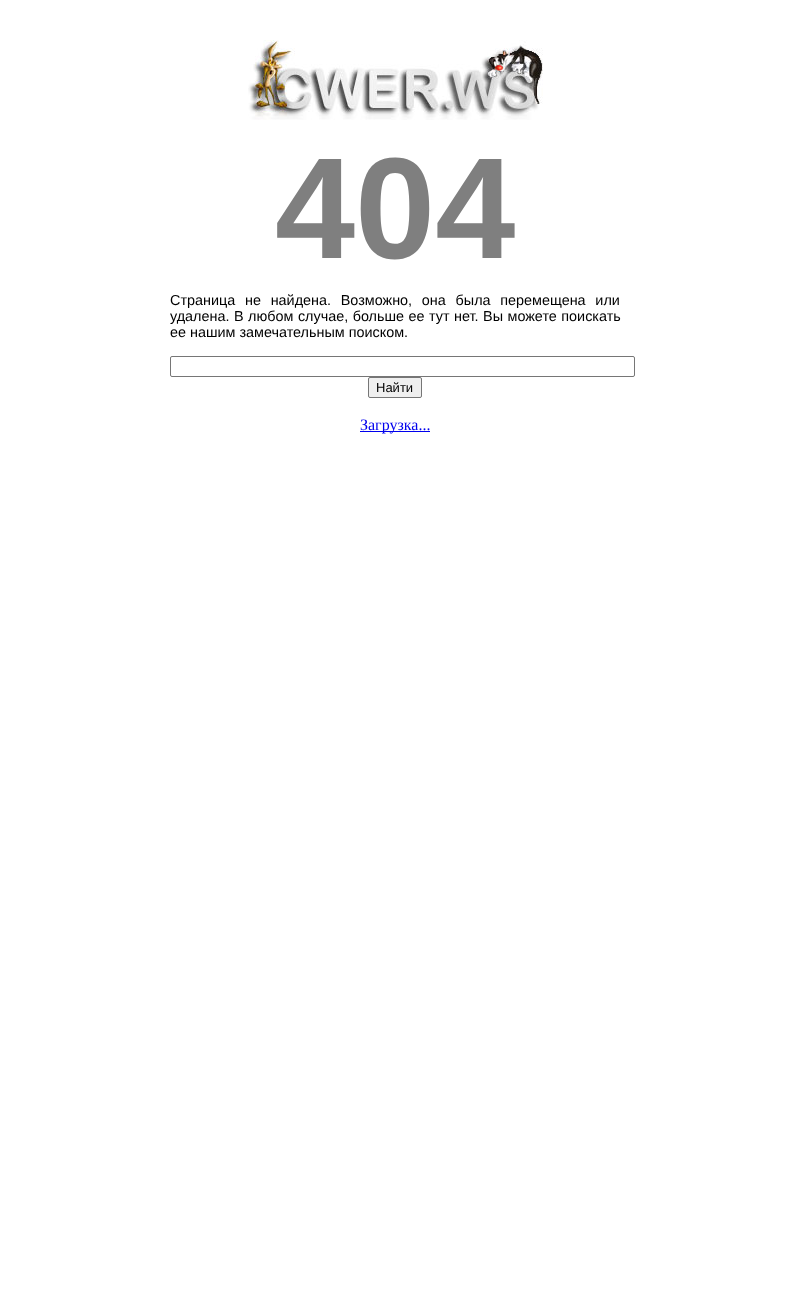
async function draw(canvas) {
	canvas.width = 790;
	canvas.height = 1298;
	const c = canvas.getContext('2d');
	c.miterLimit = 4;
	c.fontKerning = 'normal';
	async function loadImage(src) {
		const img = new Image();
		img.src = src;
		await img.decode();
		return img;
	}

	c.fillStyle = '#fff';
	c.fillRect(0, 0, 790, 1298);
	c.drawImage(await loadImage('img1.png'), 248, 40, 295, 80);
	c.font = 'bold 144px Liberation Sans';
	c.fillStyle = '#7f7f7f';
	c.fillText('404', 275, 258);
	c.wordSpacing = '5.75px';
	c.font = '14.4px Liberation Sans';
	c.fillStyle = '#000';
	c.fillText('Страница не найдена. Возможно, она была перемещена или', 170, 305);
	c.wordSpacing = '0.5px';
	c.fillText('удалена. В любом случае, больше ее тут нет. Вы можете поискать', 170, 321);
	c.wordSpacing = '0px';
	c.fillText('ее нашим замечательным поиском.', 170, 337);
	c.beginPath();
	c.roundRect(170.5, 356.5, 464, 20, 1.5);
	c.strokeStyle = '#767676';
	c.stroke();
	c.fillStyle = '#efefef';
	c.beginPath();
	c.roundRect(368.5, 377.5, 53, 20, 1.5);
	c.fill();
	c.stroke();
	c.font = '13px Liberation Sans';
	c.fillStyle = '#000';
	c.fillText('Найти', 376, 392);
	c.fillStyle = '#00e';
	c.fillRect(360, 431, 70, 1);
	c.font = '16px Liberation Serif';
	c.fillText('Загрузка...', 360, 430);
}

draw(document.querySelector('canvas'));
